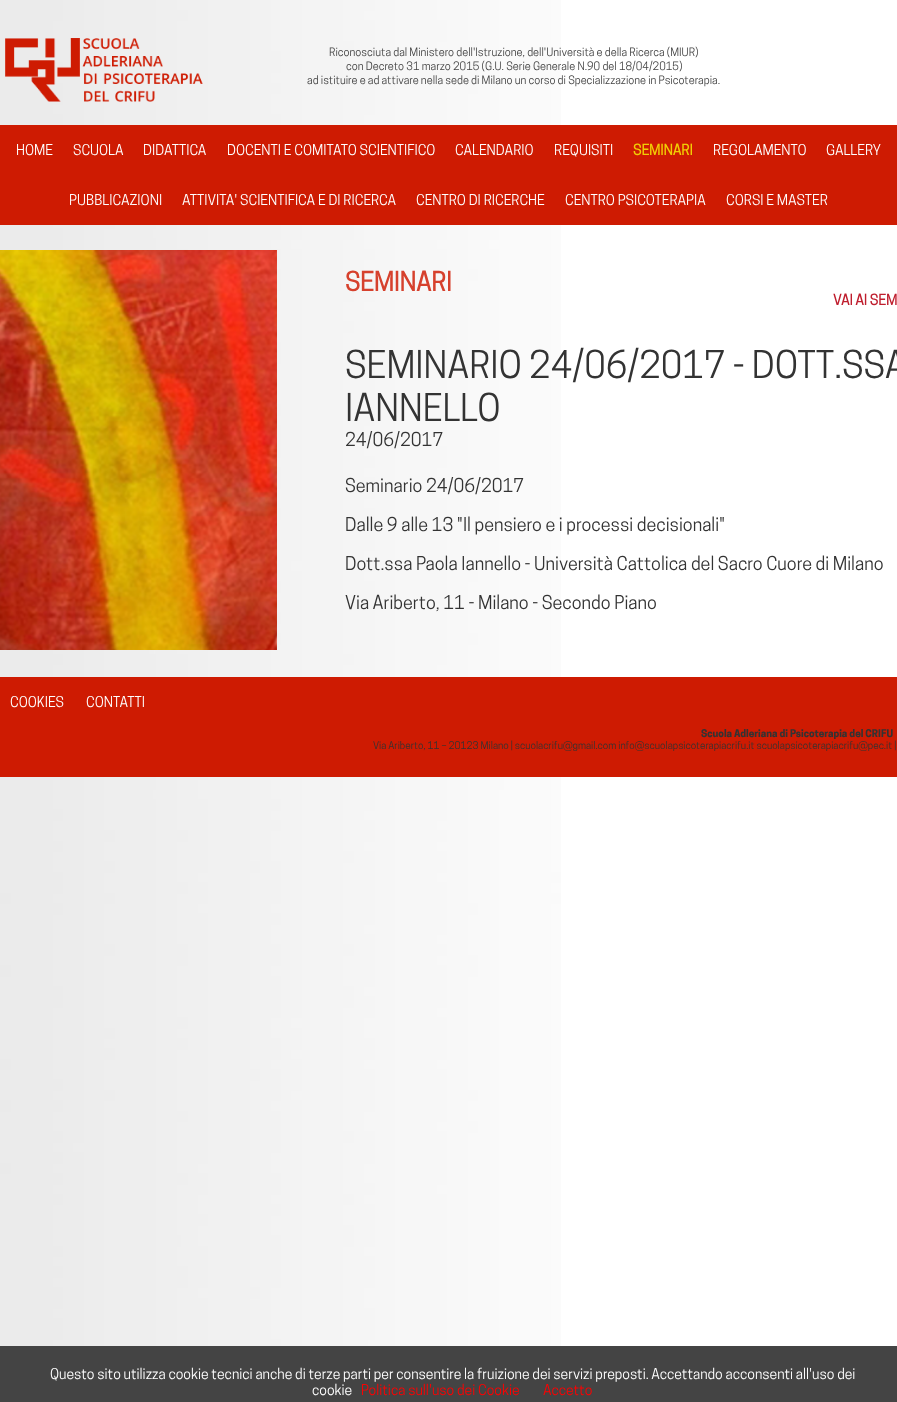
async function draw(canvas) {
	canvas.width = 897;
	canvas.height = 1402;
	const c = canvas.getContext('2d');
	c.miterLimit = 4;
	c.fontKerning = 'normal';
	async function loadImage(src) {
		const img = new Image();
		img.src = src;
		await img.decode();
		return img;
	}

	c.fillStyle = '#fff';
	c.fillRect(0, 0, 897, 1402);
	c.drawImage(await loadImage('img1.png'), 0, 0, 561, 1346);
	c.drawImage(await loadImage('img2.png'), 5, 38, 198, 64);
	c.font = '11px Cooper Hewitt';
	c.fillStyle = '#444';
	for (const [text, x, y] of [
		['Riconosciuta dal Ministero dell\'Istruzione, dell\'Università e della Ricerca (MIUR)', 329, 56],
		['con Decreto 31 marzo 2015 (G.U. Serie Generale N.90 del 18/04/2015)', 346, 70],
		['ad istituire e ad attivare nella sede di Milano un corso di Specializzazione in Psicoterapia.', 307, 84],
	]) {
		c.fillText(text, x, y);
	}
	c.fillStyle = '#ce1b02';
	c.fillRect(0, 125, 897, 100);
	c.font = '14px Cooper Hewitt';
	c.fillStyle = '#fff';
	for (const [text, x, y] of [
		['HOME', 16, 155],
		['SCUOLA', 73, 155],
		['DIDATTICA', 143, 155],
		['DOCENTI E COMITATO SCIENTIFICO', 227, 155],
		['CALENDARIO', 455, 155],
		['REQUISITI', 554, 155],
	]) {
		c.fillText(text, x, y);
	}
	c.font = 'bold 14px Cooper Hewitt';
	c.fillStyle = '#f1cd04';
	c.fillText('SEMINARI', 633, 155);
	c.font = '14px Cooper Hewitt';
	c.fillStyle = '#fff';
	for (const [text, x, y] of [
		['REGOLAMENTO', 713, 155],
		['GALLERY', 826, 155],
		['PUBBLICAZIONI', 69, 205],
		['ATTIVITA\' SCIENTIFICA E DI RICERCA', 182, 205],
		['CENTRO DI RICERCHE', 416, 205],
		['CENTRO PSICOTERAPIA', 565, 205],
		['CORSI E MASTER', 726, 205],
	]) {
		c.fillText(text, x, y);
	}
	c.drawImage(await loadImage('img3.png'), 0, 250, 277, 400);
	c.font = 'bold 25px Cooper Hewitt';
	c.fillStyle = '#d6412d';
	c.fillText('SEMINARI', 345, 291);
	c.font = 'bold 14px Cooper Hewitt';
	c.fillStyle = '#bf1e2e';
	c.fillText('VAI AI SEM', 833, 305);
	c.font = '36px Cooper Hewitt';
	c.fillStyle = '#333';
	c.fillText('SEMINARIO 24/06/2017 - DOTT.SSA', 345, 378);
	c.fillText('IANNELLO', 345, 421);
	c.font = '18px Cooper Hewitt';
	for (const [text, x, y] of [
		['24/06/2017', 345, 446],
		['Seminario 24/06/2017', 345, 492],
		['Dalle 9 alle 13 "Il pensiero e i processi decisionali"', 345, 531],
		['Dott.ssa Paola Iannello - Università Cattolica del Sacro Cuore di Milano', 345, 570],
		['Via Ariberto, 11 - Milano - Secondo Piano', 345, 609],
	]) {
		c.fillText(text, x, y);
	}
	c.fillStyle = '#ce1b02';
	c.fillRect(0, 677, 897, 100);
	c.font = '14px Cooper Hewitt';
	c.fillStyle = '#fff';
	c.fillText('COOKIES', 10, 707);
	c.fillText('CONTATTI', 86, 707);
	c.font = 'bold 10px "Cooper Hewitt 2"';
	c.fillStyle = '#333';
	c.fillText('Scuola Adleriana di Psicoterapia del CRIFU', 701, 737);
	c.font = '10px Cooper Hewitt';
	c.fillText('Via Ariberto, 11 – 20123 Milano | scuolacrifu@gmail.com info@scuolapsicoterapiacrifu.it scuolapsicoterapiacrifu@pec.it |', 373, 749);
	c.fillStyle = '#444';
	c.fillRect(0, 1346, 897, 56);
	c.font = '14px Cooper Hewitt';
	c.fillStyle = '#fff';
	c.fillText('Questo sito utilizza cookie tecnici anche di terze parti per consentire la fruizione dei servizi preposti. Accettando acconsenti all\'uso dei', 50, 1379);
	c.fillText('cookie', 312, 1395);
	c.fillStyle = '#f00';
	c.fillText('Politica sull\'uso dei Cookie', 361, 1395);
	c.fillText('Accetto', 543, 1395);
}

draw(document.querySelector('canvas'));
